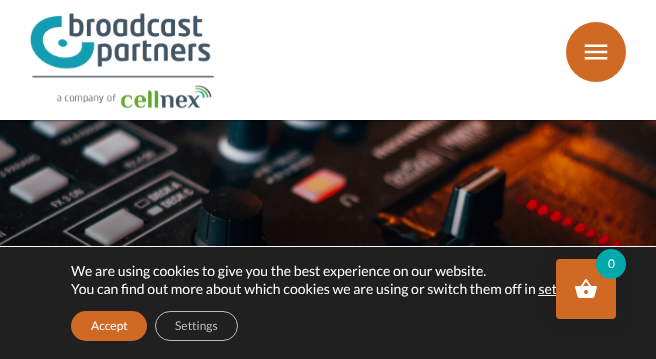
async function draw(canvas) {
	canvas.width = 656;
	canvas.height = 359;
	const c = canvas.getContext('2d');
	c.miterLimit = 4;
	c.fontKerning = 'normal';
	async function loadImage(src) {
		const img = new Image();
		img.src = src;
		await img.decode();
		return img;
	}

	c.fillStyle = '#fff';
	c.fillRect(0, 0, 656, 359);
	c.drawImage(await loadImage('img3.png'), 0, 120, 656, 126);
	c.save();
	c.beginPath();
	c.rect(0, 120, 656, 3);
	c.clip();
	c.fillStyle = '#000000bf';
	c.filter = 'blur(1.5px)';
	c.beginPath();
	c.rect(0, 0, 656, 120);
	c.fill();
	c.filter = 'none';
	c.restore();
	c.drawImage(await loadImage('img1.png'), 30, 13, 185, 96);
	c.fillStyle = '#d06924';
	c.beginPath();
	c.arc(596, 52, 30, 0, 2 * Math.PI);
	c.fill();
	c.drawImage(await loadImage('img2.png'), 584, 44, 24, 16);
	c.fillStyle = '#202020';
	c.fillRect(0, 247, 656, 112);
	c.fillStyle = '#fff';
	c.fillRect(538, 295, 18, 1);
	c.fillStyle = '#00000026';
	c.filter = 'blur(10px)';
	c.beginPath();
	c.roundRect(556, 259, 60, 60, 4);
	c.fill();
	c.filter = 'none';
	c.font = '14px Lato';
	c.fillStyle = '#fff';
	c.fillText('You can find out more about which cookies we are using or switch them off in set', 71, 294);
	c.fillStyle = '#d06924';
	c.beginPath();
	c.roundRect(556, 259, 60, 60, 4);
	c.fill();
	c.fillStyle = '#0aa';
	c.beginPath();
	c.arc(611, 264, 15, 0, 2 * Math.PI);
	c.fill();
	c.font = '12px Lato';
	c.fillStyle = '#fff';
	c.fillText('0', 608, 268);
	c.drawImage(await loadImage('img4.png'), 575, 279, 22, 19);
	c.font = '14px Lato';
	c.fillText('We are using cookies to give you the best experience on our website.', 71, 276);
	c.fillStyle = '#d06924';
	c.beginPath();
	c.roundRect(71, 311, 76, 30, 15);
	c.fill();
	c.font = '12px Lato';
	c.fillStyle = '#fff';
	c.fillText('Accept', 91, 330);
	c.beginPath();
	c.roundRect(155.5, 311.5, 82, 29, 14.5);
	c.strokeStyle = '#bcbcbc';
	c.stroke();
	c.fillStyle = '#bcbcbc';
	c.fillText('Settings', 175, 330);
}

draw(document.querySelector('canvas'));
